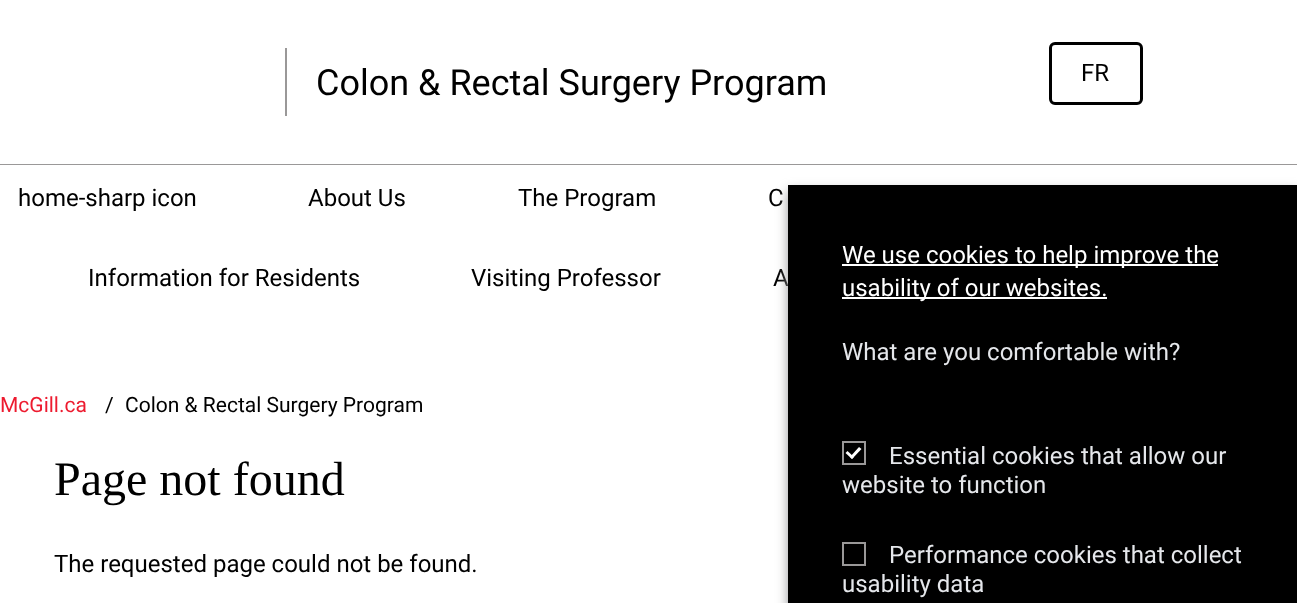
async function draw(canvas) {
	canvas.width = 1297;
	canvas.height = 603;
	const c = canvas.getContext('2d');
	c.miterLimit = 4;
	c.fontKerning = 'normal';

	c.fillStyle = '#fff';
	c.fillRect(0, 0, 1297, 603);
	c.fillStyle = '#9a9898';
	c.fillRect(285, 48, 2, 68);
	c.font = '36px Roboto';
	c.fillStyle = '#000';
	c.fillText('Colon & Rectal Surgery Program', 316, 95);
	c.beginPath();
	c.roundRect(1050.5, 43.5, 91, 60, 4.5);
	c.strokeStyle = '#000';
	c.lineWidth = 3;
	c.stroke();
	c.font = '24px Roboto';
	c.fillText('FR', 1081, 81);
	c.fillStyle = '#9a9898';
	c.fillRect(0, 164, 1297, 1);
	c.fillStyle = '#000';
	for (const [text, x, y] of [
		['home-sharp icon', 18, 206],
		['About Us', 308, 206],
		['The Program', 518, 206],
		['C', 768, 206],
		['Information for Residents', 88, 286],
		['Visiting Professor', 471, 286],
		['A', 773, 286],
	]) {
		c.fillText(text, x, y);
	}
	c.font = '21px Roboto';
	c.fillStyle = '#ed1b2f';
	c.fillText('McGill.ca', 0, 412);
	c.fillStyle = '#000';
	c.fillText('/', 105, 412);
	c.fillText('Colon & Rectal Surgery Program', 125, 412);
	c.font = '48px Liberation Serif';
	c.fillText('Page not found', 54, 495);
	c.font = '24px Roboto';
	c.fillText('The requested page could not be found.', 54, 572);
	c.fillStyle = '#979799';
	c.filter = 'blur(6px)';
	c.beginPath();
	c.rect(788, 191, 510, 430);
	c.fill();
	c.filter = 'none';
	c.fillStyle = '#000';
	c.fillRect(788, 185, 509, 418);
	c.fillStyle = '#fff';
	c.fillRect(842, 264, 376, 2);
	c.fillText('We use cookies to help improve the', 842, 263);
	c.fillRect(842, 297, 265, 2);
	c.fillText('usability of our websites.', 842, 296);
	c.fillStyle = '#e5e7eb';
	c.fillText('What are you comfortable with?', 842, 360);
	c.strokeStyle = '#9a9898';
	c.lineWidth = 2;
	c.strokeRect(843, 442, 22, 22);
	c.fillStyle = '#fff';
	c.beginPath();
	c.moveTo(859, 447);
	c.lineTo(861.5, 449);
	c.lineTo(852, 459);
	c.lineTo(850, 457);
	c.closePath();
	c.fill();
	c.beginPath();
	c.moveTo(847.5, 451);
	c.lineTo(854, 457);
	c.lineTo(852, 459);
	c.lineTo(845.5, 453);
	c.closePath();
	c.fill();
	c.fillStyle = '#e5e7eb';
	c.fillText('Essential cookies that allow our', 889, 464);
	c.fillText('website to function', 842, 493);
	c.strokeRect(843, 543, 22, 22);
	c.fillText('Performance cookies that collect', 889, 563);
	c.fillText('usability data', 842, 592);
}

draw(document.querySelector('canvas'));
